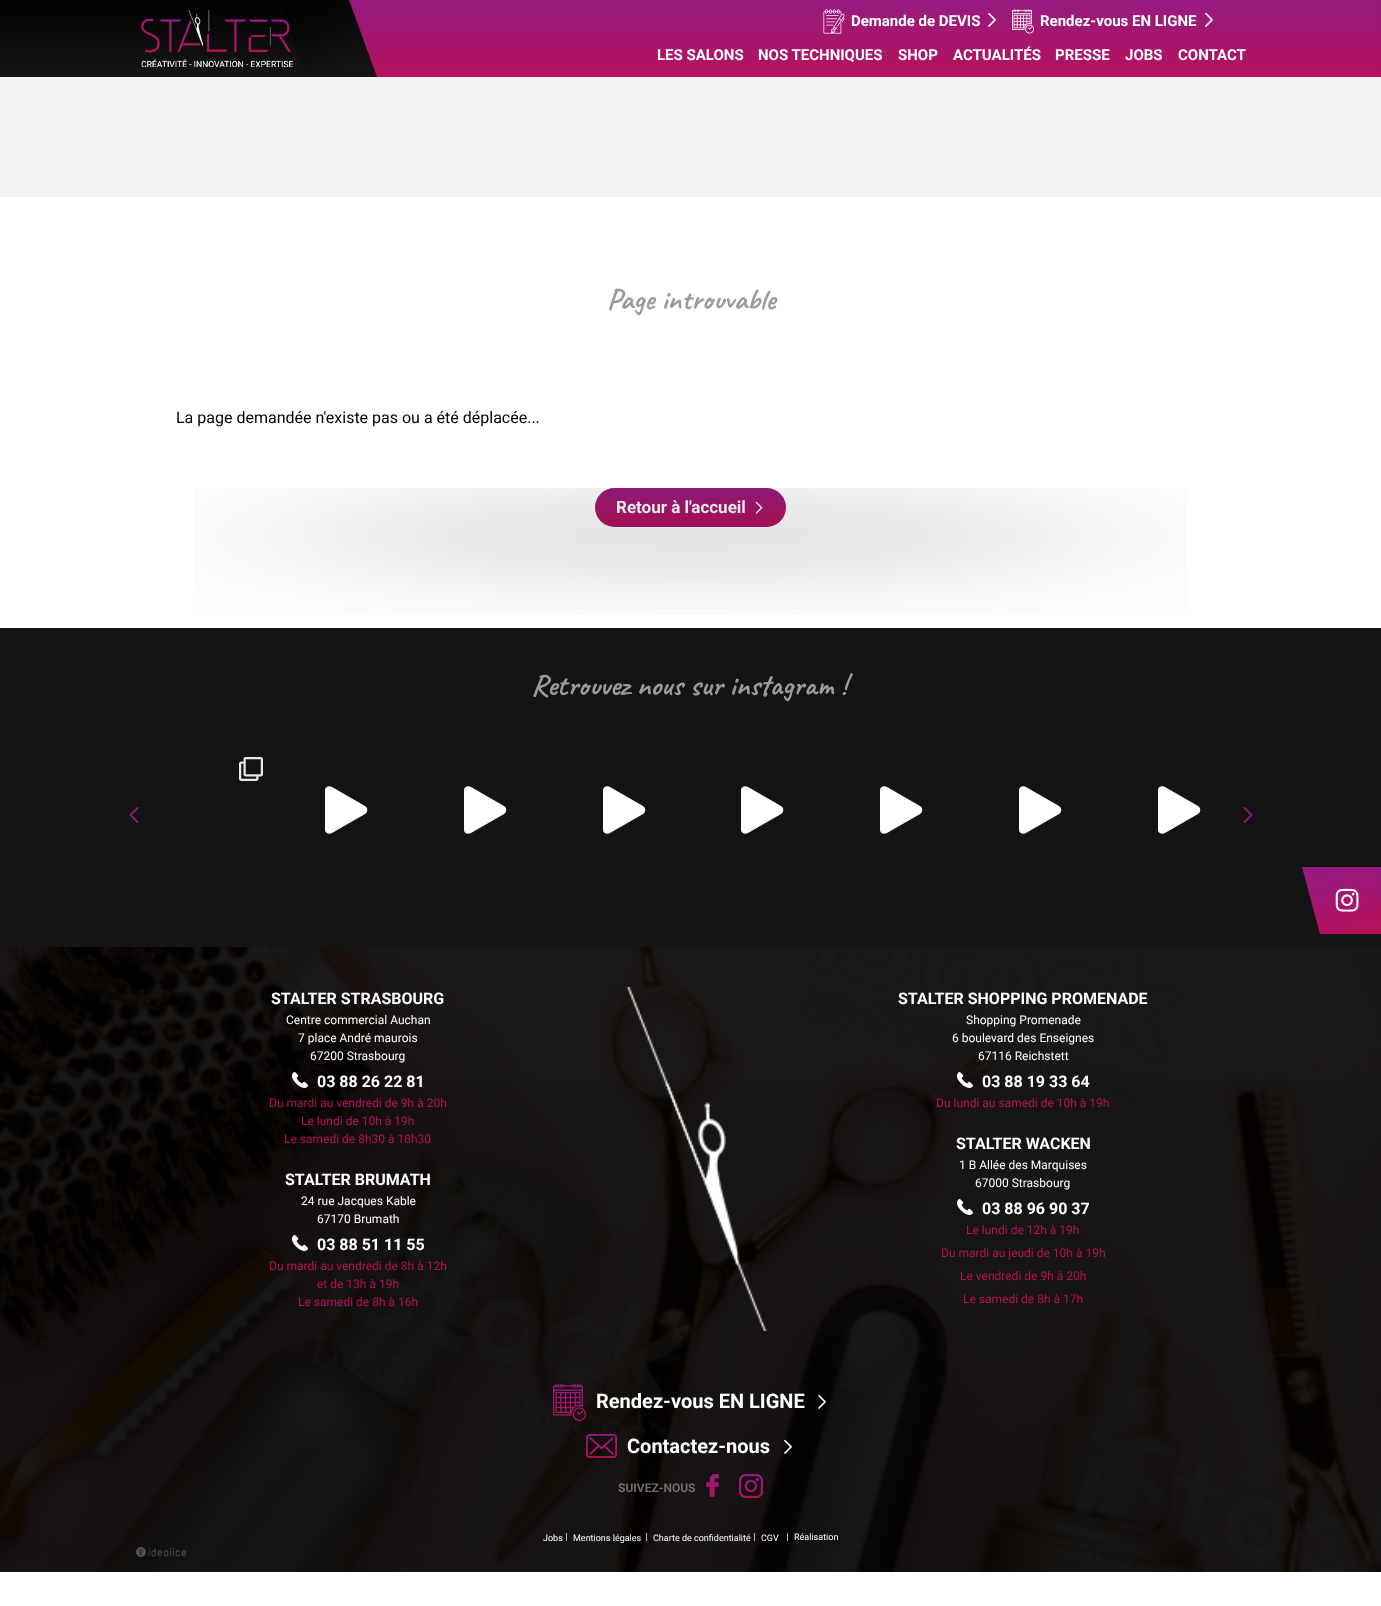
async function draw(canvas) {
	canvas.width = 1381;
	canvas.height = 1606;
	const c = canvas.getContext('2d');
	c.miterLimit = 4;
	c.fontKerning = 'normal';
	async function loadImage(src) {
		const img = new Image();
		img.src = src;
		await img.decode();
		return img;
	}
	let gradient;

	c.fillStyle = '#fff';
	c.fillRect(0, 0, 1381, 1606);
	gradient = c.createLinearGradient(691, 0, 691, 77);
	gradient.addColorStop(0, '#961b80');
	gradient.addColorStop(1, '#b5125c');
	c.fillStyle = gradient;
	c.fillRect(349, 0, 1032, 77);
	gradient = c.createLinearGradient(138, 0, 138, 77);
	gradient.addColorStop(0, '#020202');
	gradient.addColorStop(1, '#151515');
	c.fillStyle = gradient;
	c.fillRect(0, 0, 121, 77);
	gradient = c.createLinearGradient(222, 0, 222, 77);
	gradient.addColorStop(0, '#020202');
	gradient.addColorStop(1, '#151515');
	c.fillStyle = gradient;
	c.fillRect(121, 0, 186, 77);
	gradient = c.createLinearGradient(314, 0, 342, 77);
	gradient.addColorStop(0, '#020202');
	gradient.addColorStop(1, '#151515');
	c.fillStyle = gradient;
	c.beginPath();
	c.moveTo(279, 0);
	c.lineTo(349, 0);
	c.lineTo(377, 77);
	c.lineTo(307, 77);
	c.closePath();
	c.fill();
	c.drawImage(await loadImage('img1.png'), 141, 10, 152, 57);
	c.drawImage(await loadImage('img2.png'), 823, 9, 22, 25);
	c.font = 'bold 15px Roboto';
	c.fillStyle = '#fff';
	c.fillText('Demande de DEVIS', 851, 26);
	c.drawImage(await loadImage('img3.png'), 988, 12, 8, 15);
	c.drawImage(await loadImage('img4.png'), 1012, 9, 22, 25);
	c.fillText('Rendez-vous EN LIGNE', 1040, 26);
	c.drawImage(await loadImage('img3.png'), 1205, 12, 8, 15);
	for (const [text, x, y] of [
		['LES SALONS', 657, 60],
		['NOS TECHNIQUES', 758, 60],
		['SHOP', 898, 60],
		['ACTUALITÉS', 953, 60],
		['PRESSE', 1055, 60],
		['JOBS', 1125, 60],
		['CONTACT', 1178, 60],
	]) {
		c.fillText(text, x, y);
	}
	c.fillStyle = '#f1f2f2';
	c.fillRect(0, 77, 1381, 120);
	c.font = 'bold 30px Caveat';
	c.fillStyle = '#9b9b9b';
	c.fillText('Page introuvable', 607, 309);
	c.font = '16px Roboto';
	c.fillStyle = '#000';
	c.fillText('La page demandée n\'existe pas ou a été déplacée...', 176, 423);
	c.save();
	c.beginPath();
	c.roundRect(595, 488, 191, 39, 19.5);
	c.clip();
	gradient = c.createLinearGradient(691, 452, 691, 489);
	gradient.addColorStop(0, '#961b80');
	gradient.addColorStop(1, '#b5125c');
	c.fillStyle = gradient;
	c.fillRect(608, 488, 165, 1);
	gradient = c.createLinearGradient(691, 489, 691, 526);
	gradient.addColorStop(0, '#961b80');
	gradient.addColorStop(1, '#b5125c');
	c.fillStyle = gradient;
	c.fillRect(595, 489, 191, 37);
	gradient = c.createLinearGradient(691, 526, 691, 563);
	gradient.addColorStop(0, '#961b80');
	gradient.addColorStop(1, '#b5125c');
	c.fillStyle = gradient;
	c.fillRect(608, 526, 165, 1);
	c.restore();
	c.font = 'bold 17px Roboto';
	c.fillStyle = '#fff';
	c.fillText('Retour à l\'accueil', 616, 513);
	c.drawImage(await loadImage('img5.png'), 755, 501, 8, 13);
	c.drawImage(await loadImage('img6.png'), 194, 488, 993, 127);
	c.fillStyle = '#141414';
	c.fillRect(0, 628, 1381, 319);
	c.font = 'bold 30px Caveat';
	c.fillStyle = '#9b9b9b';
	c.fillText('Retrouvez nous sur instagram !', 531, 695);
	c.drawImage(await loadImage('img7.png'), 239, 757, 24, 24);
	c.fillStyle = '#fff';
	c.beginPath();
	c.moveTo(365, 806);
	c.lineTo(332, 787);
	c.bezierCurveTo(329, 785, 325, 787, 325, 790);
	c.lineTo(325, 830);
	c.bezierCurveTo(325, 833, 329, 835, 332, 833);
	c.lineTo(365, 814);
	c.bezierCurveTo(368, 812, 368, 808, 365, 806);
	c.closePath();
	c.fill();
	c.beginPath();
	c.moveTo(504, 806);
	c.lineTo(471, 787);
	c.bezierCurveTo(468, 785, 464, 787, 464, 790);
	c.lineTo(464, 830);
	c.bezierCurveTo(464, 833, 468, 835, 471, 833);
	c.lineTo(504, 814);
	c.bezierCurveTo(507, 812, 507, 808, 504, 806);
	c.closePath();
	c.fill();
	c.beginPath();
	c.moveTo(643, 806);
	c.lineTo(610, 787);
	c.bezierCurveTo(607, 785, 603, 787, 603, 790);
	c.lineTo(603, 830);
	c.bezierCurveTo(603, 833, 607, 835, 610, 833);
	c.lineTo(643, 814);
	c.bezierCurveTo(646, 812, 646, 808, 643, 806);
	c.closePath();
	c.fill();
	c.beginPath();
	c.moveTo(781, 806);
	c.lineTo(748, 787);
	c.bezierCurveTo(745, 785, 741, 787, 741, 790);
	c.lineTo(741, 830);
	c.bezierCurveTo(741, 833, 745, 835, 748, 833);
	c.lineTo(781, 814);
	c.bezierCurveTo(784, 812, 784, 808, 781, 806);
	c.closePath();
	c.fill();
	c.beginPath();
	c.moveTo(920, 806);
	c.lineTo(887, 787);
	c.bezierCurveTo(884, 785, 880, 787, 880, 790);
	c.lineTo(880, 830);
	c.bezierCurveTo(880, 833, 884, 835, 887, 833);
	c.lineTo(920, 814);
	c.bezierCurveTo(923, 812, 923, 808, 920, 806);
	c.closePath();
	c.fill();
	c.beginPath();
	c.moveTo(1059, 806);
	c.lineTo(1026, 787);
	c.bezierCurveTo(1023, 785, 1019, 787, 1019, 790);
	c.lineTo(1019, 830);
	c.bezierCurveTo(1019, 833, 1023, 835, 1026, 833);
	c.lineTo(1059, 814);
	c.bezierCurveTo(1062, 812, 1062, 808, 1059, 806);
	c.closePath();
	c.fill();
	c.beginPath();
	c.moveTo(1198, 806);
	c.lineTo(1165, 787);
	c.bezierCurveTo(1162, 785, 1158, 787, 1158, 790);
	c.lineTo(1158, 830);
	c.bezierCurveTo(1158, 833, 1162, 835, 1165, 833);
	c.lineTo(1198, 814);
	c.bezierCurveTo(1201, 812, 1201, 808, 1198, 806);
	c.closePath();
	c.fill();
	c.drawImage(await loadImage('img8.png'), 129, 807, 10, 16);
	c.drawImage(await loadImage('img9.png'), 1243, 807, 10, 16);
	gradient = c.createLinearGradient(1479, 867, 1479, 934);
	gradient.addColorStop(0, '#961b80');
	gradient.addColorStop(1, '#b5125c');
	c.fillStyle = gradient;
	c.fillRect(1372, 867, 9, 34);
	gradient = c.createLinearGradient(1337, 867, 1355, 934);
	gradient.addColorStop(0, '#961b80');
	gradient.addColorStop(1, '#b5125c');
	c.fillStyle = gradient;
	c.beginPath();
	c.moveTo(1302, 867);
	c.lineTo(1372, 867);
	c.lineTo(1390, 934);
	c.lineTo(1320, 934);
	c.closePath();
	c.fill();
	c.drawImage(await loadImage('img10.png'), 1335, 888, 24, 24);
	c.drawImage(await loadImage('img11.png'), 0, 947, 1381, 625);
	c.font = 'bold 16px Roboto';
	c.fillStyle = '#fff';
	c.fillText('STALTER STRASBOURG', 271, 1004);
	c.font = '12px Roboto';
	for (const [text, x, y] of [
		['Centre commercial Auchan', 286, 1024],
		['7 place André maurois', 298, 1042],
		['67200 Strasbourg', 310, 1060],
	]) {
		c.fillText(text, x, y);
	}
	c.drawImage(await loadImage('img12.png'), 292, 1072, 16, 16);
	c.font = 'bold 16px Roboto';
	c.fillText('03 88 26 22 81', 317, 1087);
	c.font = '12px Roboto';
	c.fillStyle = '#b5125c';
	for (const [text, x, y] of [
		['Du mardi au vendredi de 9h à 20h', 269, 1107],
		['Le lundi de 10h à 19h', 301, 1125],
		['Le samedi de 8h30 à 18h30', 284, 1143],
	]) {
		c.fillText(text, x, y);
	}
	c.font = 'bold 16px Roboto';
	c.fillStyle = '#fff';
	c.fillText('STALTER BRUMATH', 285, 1185);
	c.font = '12px Roboto';
	c.fillText('24 rue Jacques Kable', 301, 1205);
	c.fillText('67170 Brumath', 317, 1223);
	c.drawImage(await loadImage('img13.png'), 292, 1235, 16, 16);
	c.font = 'bold 16px Roboto';
	c.fillText('03 88 51 11 55', 317, 1250);
	c.font = '12px Roboto';
	c.fillStyle = '#b5125c';
	for (const [text, x, y] of [
		['Du mardi au vendredi de 8h à 12h', 269, 1270],
		['et de 13h à 19h', 317, 1288],
		['Le samedi de 8h à 16h', 298, 1306],
	]) {
		c.fillText(text, x, y);
	}
	c.drawImage(await loadImage('img14.png'), 626, 987, 141, 344);
	c.font = 'bold 16px Roboto';
	c.fillStyle = '#fff';
	c.fillText('STALTER SHOPPING PROMENADE', 898, 1004);
	c.font = '12px Roboto';
	for (const [text, x, y] of [
		['Shopping Promenade', 966, 1024],
		['6 boulevard des Enseignes', 952, 1042],
		['67116 Reichstett', 978, 1060],
	]) {
		c.fillText(text, x, y);
	}
	c.drawImage(await loadImage('img15.png'), 957, 1072, 16, 16);
	c.font = 'bold 16px Roboto';
	c.fillText('03 88 19 33 64', 982, 1087);
	c.font = '12px Roboto';
	c.fillStyle = '#b5125c';
	c.fillText('Du lundi au samedi de 10h à 19h', 936, 1107);
	c.font = 'bold 16px Roboto';
	c.fillStyle = '#fff';
	c.fillText('STALTER WACKEN', 956, 1149);
	c.font = '12px Roboto';
	c.fillText('1 B Allée des Marquises', 959, 1169);
	c.fillText('67000 Strasbourg', 975, 1187);
	c.drawImage(await loadImage('img16.png'), 957, 1199, 16, 16);
	c.font = 'bold 16px Roboto';
	c.fillText('03 88 96 90 37', 982, 1214);
	c.font = '12px Roboto';
	c.fillStyle = '#b5125c';
	for (const [text, x, y] of [
		['Le lundi de 12h à 19h', 966, 1234],
		['Du mardi au jeudi de 10h à 19h', 941, 1257],
		['Le vendredi de 9h à 20h', 960, 1280],
		['Le samedi de 8h à 17h', 963, 1303],
	]) {
		c.fillText(text, x, y);
	}
	c.drawImage(await loadImage('img17.png'), 553, 1384, 33, 37);
	c.font = 'bold 20px Roboto';
	c.fillStyle = '#fff';
	c.fillText('Rendez-vous EN LIGNE', 596, 1408);
	c.drawImage(await loadImage('img18.png'), 818, 1394, 8, 15);
	c.drawImage(await loadImage('img19.png'), 586, 1434, 31, 24);
	c.fillText('Contactez-nous', 627, 1453);
	c.drawImage(await loadImage('img20.png'), 784, 1439, 8, 15);
	c.font = 'bold 12px Roboto';
	c.fillStyle = '#706d6d';
	c.fillText('SUIVEZ-NOUS', 618, 1492);
	c.drawImage(await loadImage('img21.png'), 706, 1474, 13, 23);
	c.drawImage(await loadImage('img22.png'), 739, 1474, 24, 24);
	c.font = '9px Roboto';
	c.fillStyle = '#fff';
	c.fillText('Jobs', 543, 1541);
	c.fillStyle = '#b9b9b9';
	c.fillRect(566, 1533, 1, 8);
	c.fillStyle = '#fff';
	c.fillText('Mentions légales', 573, 1541);
	c.fillStyle = '#ffffffb3';
	c.fillRect(646, 1533, 1, 8);
	c.fillStyle = '#fff';
	c.fillText('Charte de confidentialité', 653, 1541);
	c.fillStyle = '#b9b7b7';
	c.fillRect(754, 1533, 1, 8);
	c.fillStyle = '#fff';
	c.fillText('CGV', 761, 1541);
	c.fillStyle = '#b4b4b4';
	c.fillRect(787, 1533, 1, 8);
	c.fillStyle = '#fff';
	c.fillText('Réalisation', 794, 1540);
	c.drawImage(await loadImage('img23.png'), 136, 1547, 50, 10);
}

draw(document.querySelector('canvas'));
